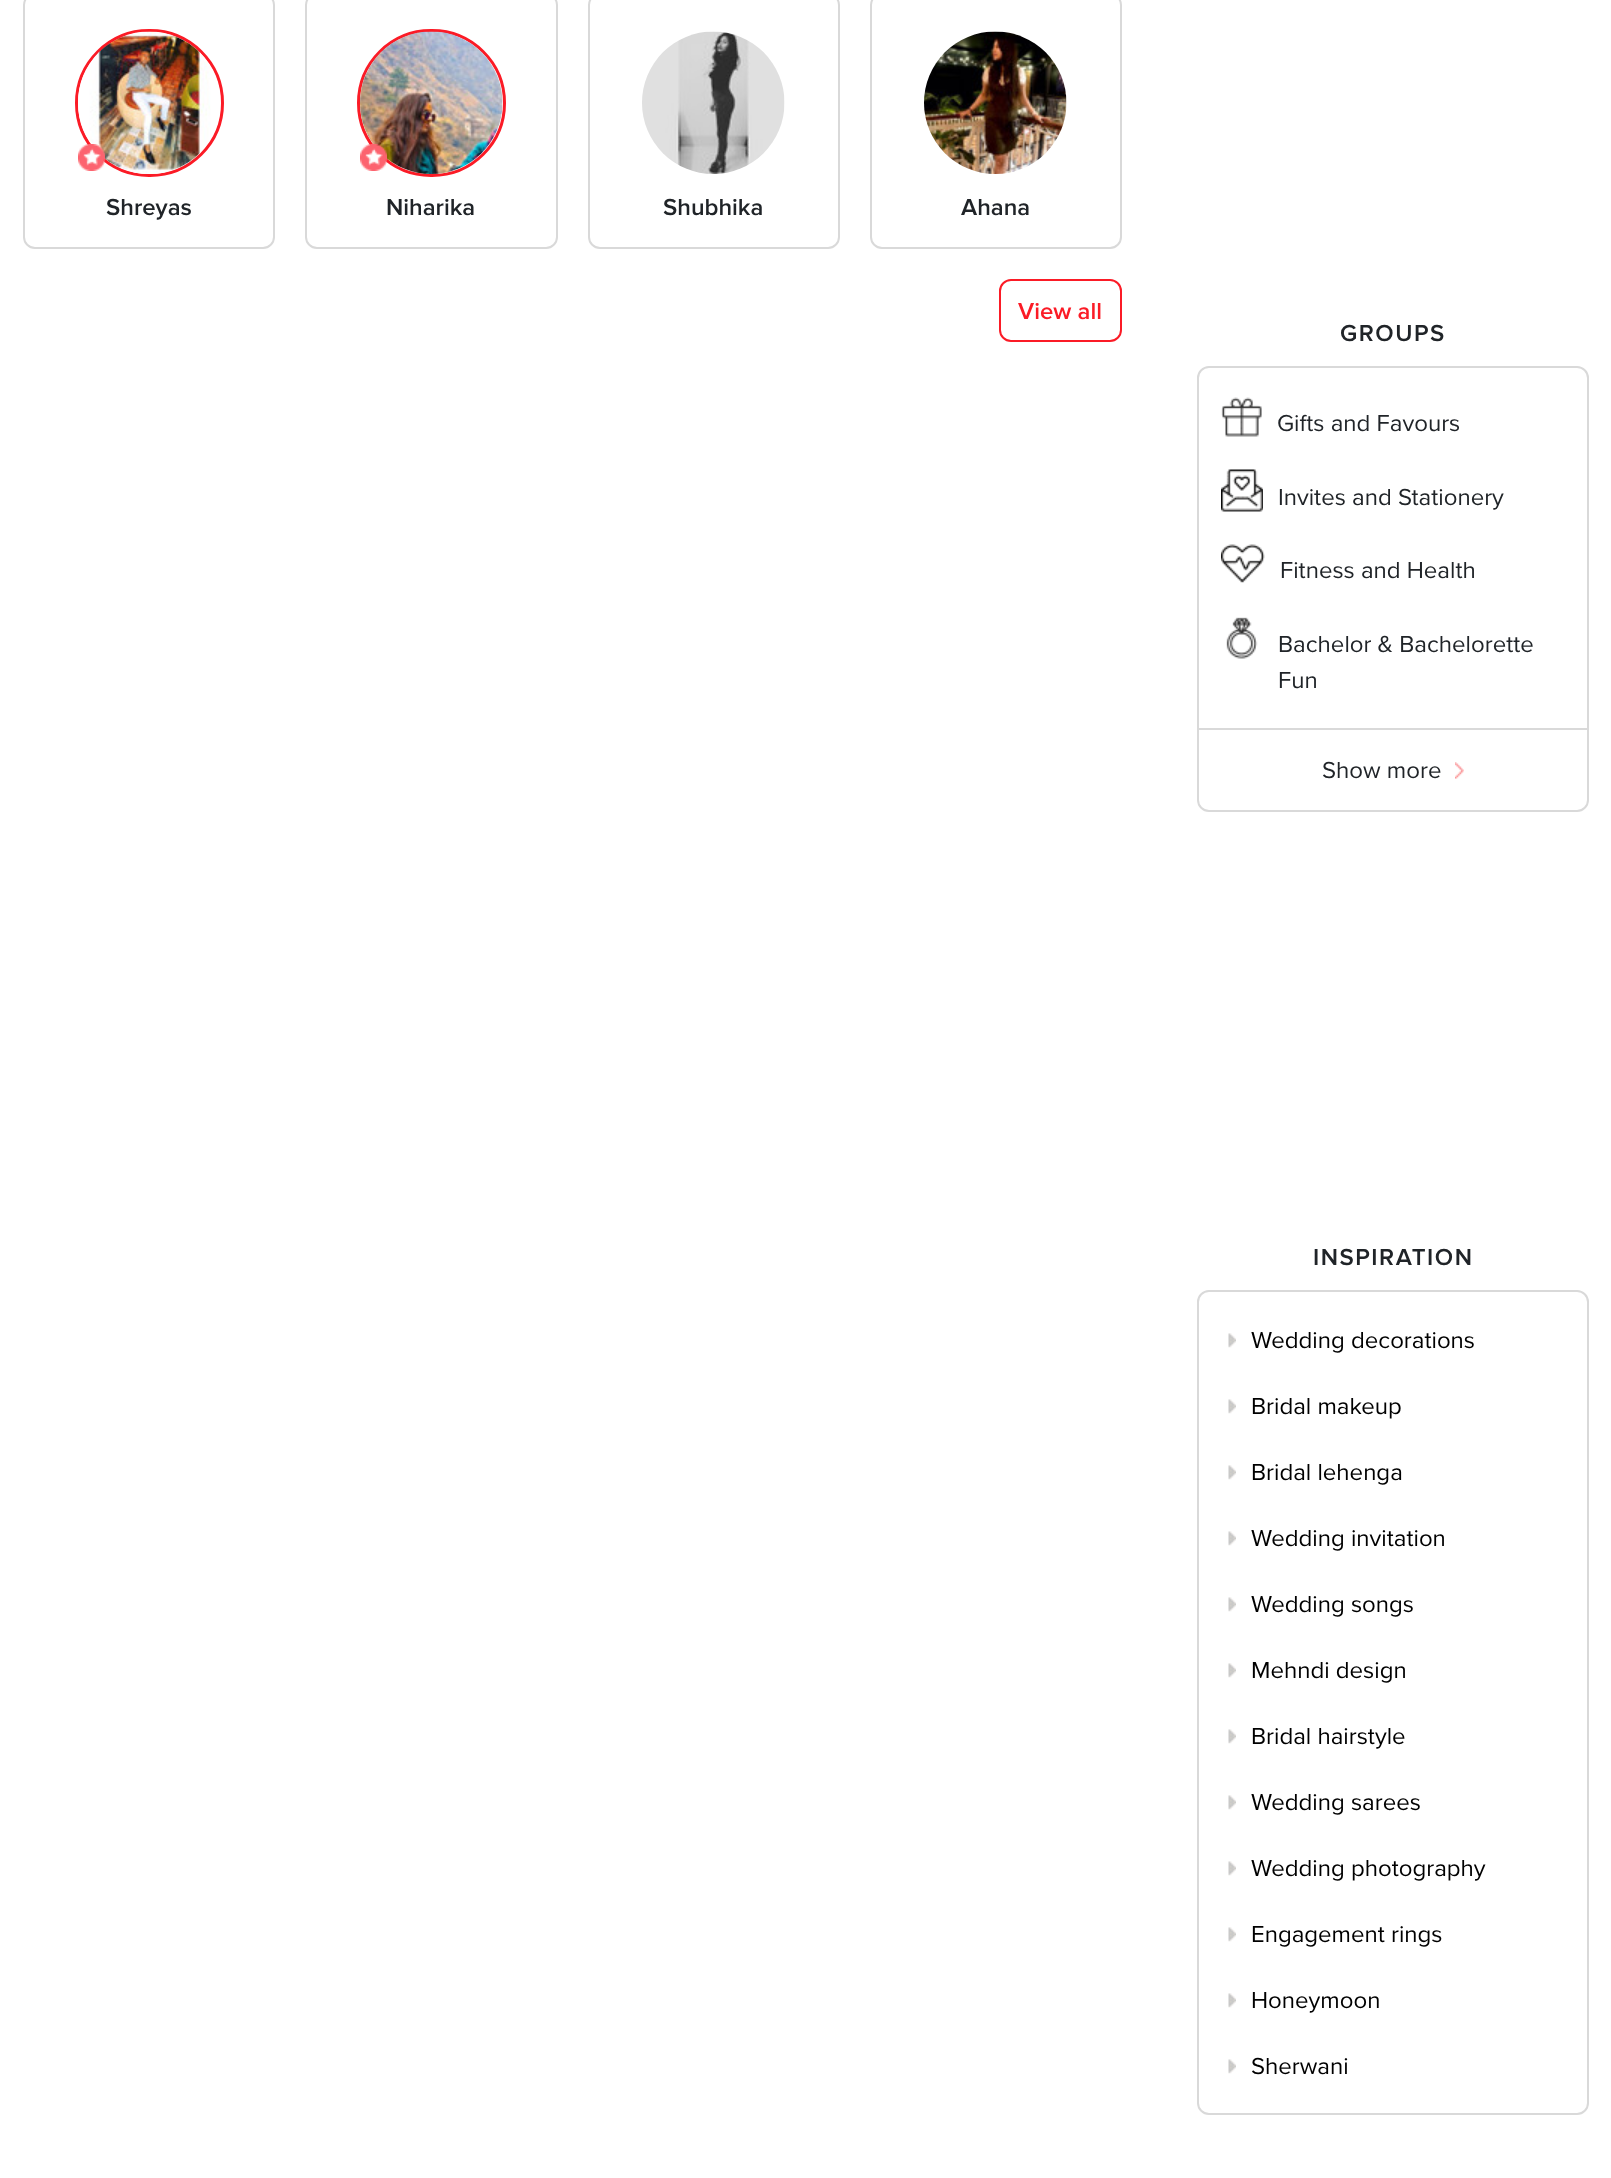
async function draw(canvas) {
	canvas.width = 1611;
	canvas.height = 2178;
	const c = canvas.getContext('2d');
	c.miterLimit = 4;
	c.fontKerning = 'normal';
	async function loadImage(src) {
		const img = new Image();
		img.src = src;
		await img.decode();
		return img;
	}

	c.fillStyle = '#fff';
	c.fillRect(0, 0, 1611, 2178);
	c.beginPath();
	c.roundRect(24, -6, 250, 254, 11);
	c.strokeStyle = '#d9d9d9';
	c.lineWidth = 2;
	c.stroke();
	c.beginPath();
	c.roundRect(76.5, 30.5, 146, 145, 72.5);
	c.strokeStyle = '#fb1b26';
	c.lineWidth = 3;
	c.stroke();
	c.drawImage(await loadImage('img1.png'), 78, 31, 143, 143);
	c.drawImage(await loadImage('img2.png'), 78, 144, 27, 27);
	c.font = '600 24px Proxima Nova';
	c.fillStyle = '#202428';
	c.fillText('Shreyas', 106, 215);
	c.beginPath();
	c.roundRect(306, -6, 251, 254, 11);
	c.strokeStyle = '#d9d9d9';
	c.lineWidth = 2;
	c.stroke();
	c.beginPath();
	c.roundRect(358.5, 30.5, 146, 145, 72.5);
	c.strokeStyle = '#fb1b26';
	c.lineWidth = 3;
	c.stroke();
	c.drawImage(await loadImage('img3.png'), 360, 31, 143, 143);
	c.drawImage(await loadImage('img4.png'), 360, 144, 27, 27);
	c.fillText('Niharika', 386, 215);
	c.beginPath();
	c.roundRect(589, -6, 250, 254, 11);
	c.strokeStyle = '#d9d9d9';
	c.lineWidth = 2;
	c.stroke();
	c.drawImage(await loadImage('img5.png'), 642, 31, 143, 143);
	c.fillText('Shubhika', 663, 215);
	c.beginPath();
	c.roundRect(871, -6, 250, 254, 11);
	c.stroke();
	c.drawImage(await loadImage('img6.png'), 924, 31, 143, 143);
	c.fillText('Ahana', 961, 215);
	c.beginPath();
	c.roundRect(1000, 280, 121, 61, 11);
	c.strokeStyle = '#fb1b26';
	c.stroke();
	c.fillStyle = '#fb1b26';
	c.fillText('View all', 1018, 319);
	c.letterSpacing = '1.5px';
	c.fillStyle = '#202428';
	c.fillText('GROUPS', 1340, 341);
	c.beginPath();
	c.roundRect(1198, 367, 390, 444, 11);
	c.strokeStyle = '#d9d9d9';
	c.stroke();
	c.drawImage(await loadImage('img7.png'), 1221, 397, 41, 40);
	c.letterSpacing = '0px';
	c.font = '24px Proxima Nova';
	c.fillText('Gifts and Favours', 1277, 431);
	c.drawImage(await loadImage('img8.png'), 1221, 469, 42, 43);
	c.fillText('Invites and Stationery', 1278, 505);
	c.drawImage(await loadImage('img9.png'), 1221, 544, 44, 39);
	c.fillText('Fitness and Health', 1280, 578);
	c.drawImage(await loadImage('img10.png'), 1226, 617, 32, 42);
	c.fillText('Bachelor & Bachelorette', 1278, 652);
	c.fillText('Fun', 1278, 688);
	c.fillStyle = '#d9d9d9';
	c.fillRect(1199, 728, 388, 2);
	c.fillStyle = '#202428';
	c.fillText('Show more', 1322, 778);
	c.drawImage(await loadImage('img11.png'), 1455, 762, 9, 17);
	c.letterSpacing = '1.5px';
	c.font = '600 24px Proxima Nova';
	c.fillText('INSPIRATION', 1313, 1265);
	c.beginPath();
	c.roundRect(1198, 1291, 390, 823, 11);
	c.stroke();
	c.drawImage(await loadImage('img12.png'), 1228, 1333, 8, 15);
	c.letterSpacing = '0px';
	c.font = '24px Proxima Nova';
	c.fillStyle = '#000';
	c.fillText('Wedding decorations', 1251, 1348);
	c.drawImage(await loadImage('img12.png'), 1228, 1399, 8, 15);
	c.fillText('Bridal makeup', 1251, 1414);
	c.drawImage(await loadImage('img12.png'), 1228, 1465, 8, 15);
	c.fillText('Bridal lehenga', 1251, 1480);
	c.drawImage(await loadImage('img12.png'), 1228, 1531, 8, 15);
	c.fillText('Wedding invitation', 1251, 1546);
	c.drawImage(await loadImage('img12.png'), 1228, 1597, 8, 15);
	c.fillText('Wedding songs', 1251, 1612);
	c.drawImage(await loadImage('img12.png'), 1228, 1663, 8, 15);
	c.fillText('Mehndi design', 1251, 1678);
	c.drawImage(await loadImage('img12.png'), 1228, 1729, 8, 15);
	c.fillText('Bridal hairstyle', 1251, 1744);
	c.drawImage(await loadImage('img12.png'), 1228, 1795, 8, 15);
	c.fillText('Wedding sarees', 1251, 1810);
	c.drawImage(await loadImage('img12.png'), 1228, 1861, 8, 15);
	c.fillText('Wedding photography', 1251, 1876);
	c.drawImage(await loadImage('img12.png'), 1228, 1927, 8, 15);
	c.fillText('Engagement rings', 1251, 1942);
	c.drawImage(await loadImage('img12.png'), 1228, 1993, 8, 15);
	c.fillText('Honeymoon', 1251, 2008);
	c.drawImage(await loadImage('img12.png'), 1228, 2059, 8, 15);
	c.fillText('Sherwani', 1251, 2074);
}

draw(document.querySelector('canvas'));
